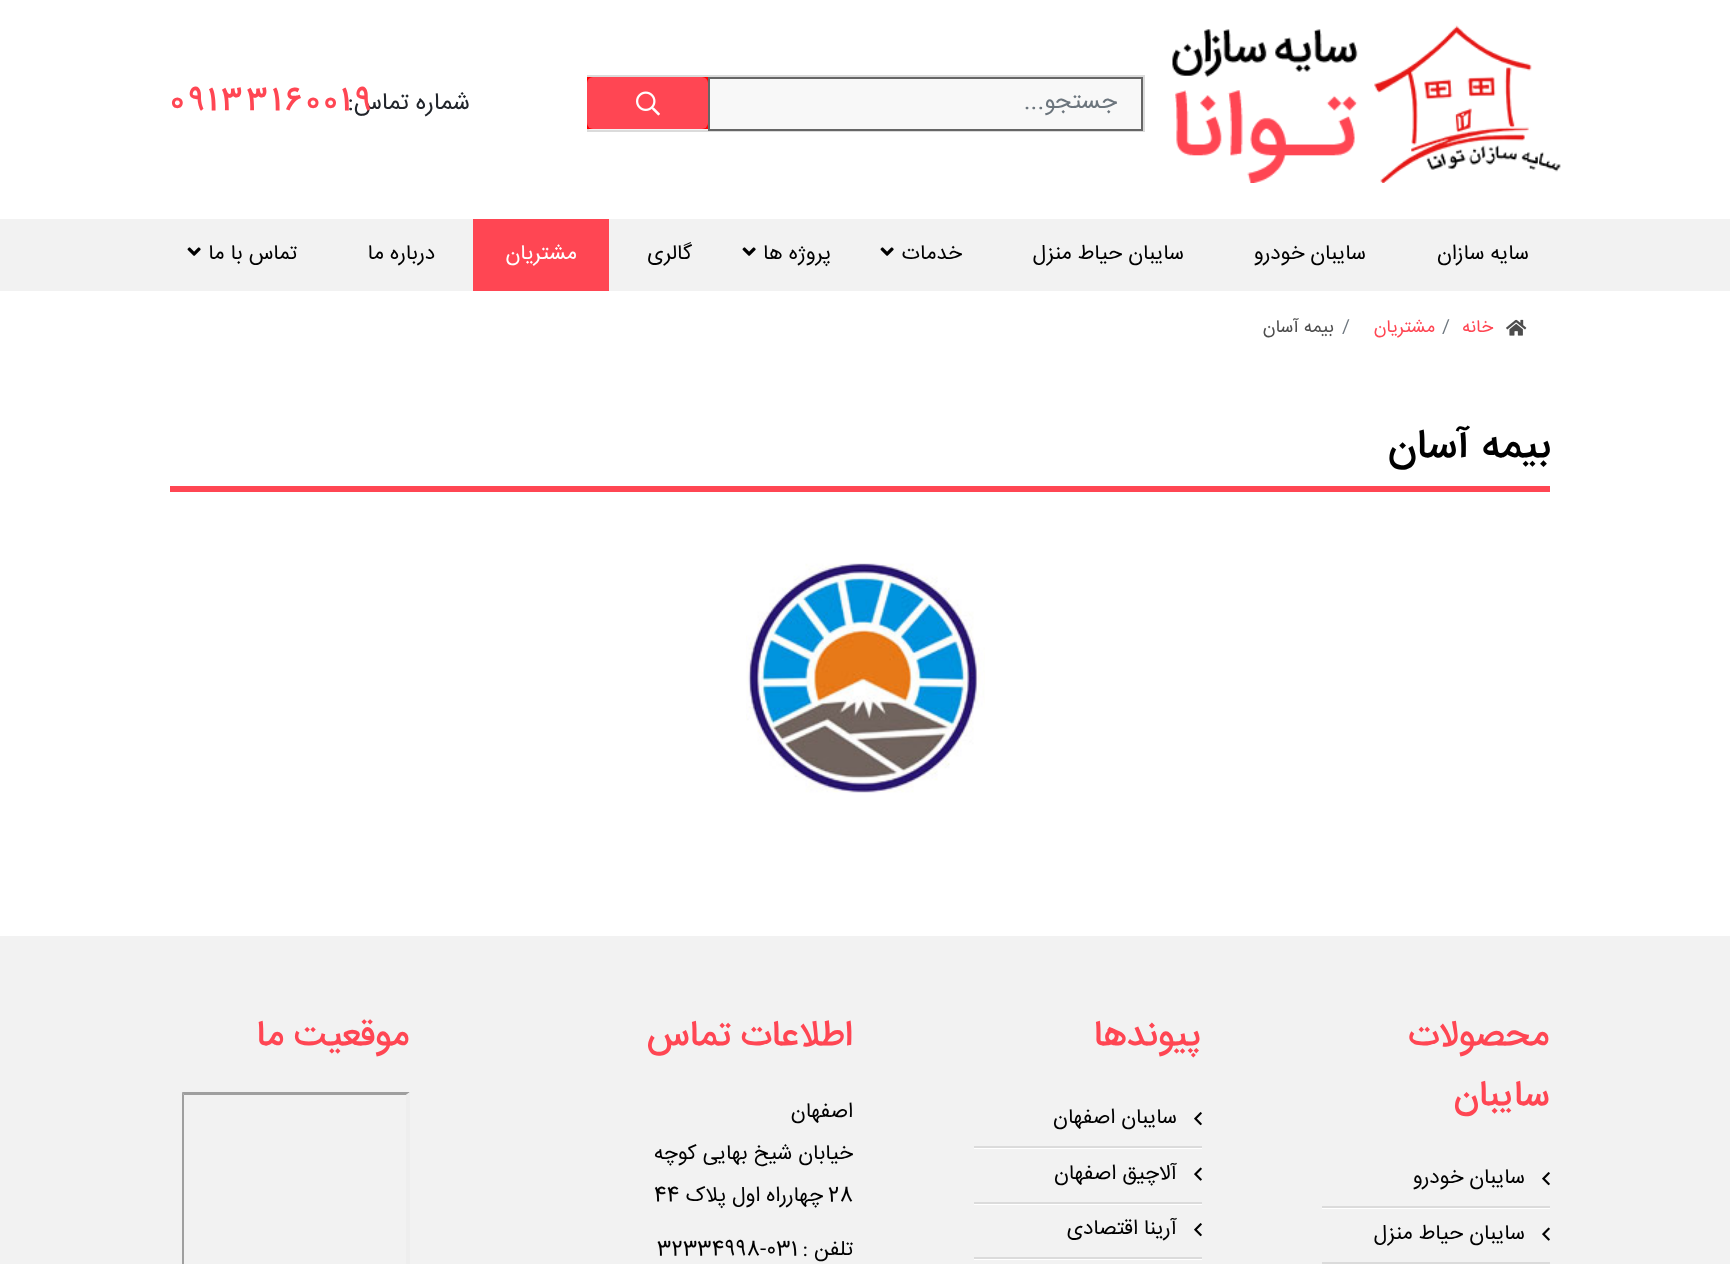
async function draw(canvas) {
	canvas.width = 1730;
	canvas.height = 1264;
	const c = canvas.getContext('2d');
	c.miterLimit = 4;
	c.fontKerning = 'normal';
	async function loadImage(src) {
		const img = new Image();
		img.src = src;
		await img.decode();
		return img;
	}

	c.fillStyle = '#fff';
	c.fillRect(0, 0, 1730, 1264);
	c.drawImage(await loadImage('img1.png'), 1172, 25, 389, 158);
	c.fillStyle = '#f2f2f2';
	c.fillRect(589, 129, 119, 1);
	c.strokeStyle = '#dbdbdb';
	c.lineWidth = 2;
	c.strokeRect(588, 76, 556, 55);
	c.fillStyle = '#f8f8f8';
	c.beginPath();
	c.rect(709, 78, 433, 52);
	c.fill();
	c.strokeStyle = '#666';
	c.stroke();
	c.direction = 'rtl';
	c.font = '24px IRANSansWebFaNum';
	c.fillStyle = '#6c757d';
	c.fillText('جستجو...', 1117, 108);
	c.fillStyle = '#f00';
	c.fillRect(587, 77, 121, 52);
	c.fillStyle = '#ff4653';
	c.beginPath();
	c.roundRect(587, 77, 121, 52, 6);
	c.fill();
	c.drawImage(await loadImage('img2.png'), 636, 91, 24, 25);
	c.fillStyle = '#21252b';
	c.fillText('شماره تماس:', 470, 109);
	c.letterSpacing = '3px';
	c.direction = 'ltr';
	c.font = '500 31.25px IRANSansWebFaNum';
	c.fillStyle = '#ff4653';
	c.fillText('09133160019', 170, 109);
	c.fillStyle = '#f2f2f2';
	c.fillRect(0, 219, 1730, 72);
	c.letterSpacing = '0px';
	c.direction = 'rtl';
	c.font = '21px IRANSansWebFaNum';
	c.fillStyle = '#000';
	for (const [text, x, y] of [
		['سایه سازان', 1529, 259],
		['سایبان خودرو', 1366, 259],
		['سایبان حیاط منزل', 1184, 259],
		['خدمات', 962, 259],
	]) {
		c.fillText(text, x, y);
	}
	c.drawImage(await loadImage('img3.png'), 880, 247, 14, 9);
	c.fillText('پروژه ها', 831, 259);
	c.drawImage(await loadImage('img3.png'), 742, 247, 14, 9);
	c.fillText('گالری', 692, 259);
	c.fillStyle = '#ff4653';
	c.fillRect(473, 219, 136, 72);
	c.fillStyle = '#fff';
	c.fillText('مشتریان', 577, 259);
	c.fillStyle = '#000';
	c.fillText('درباره ما', 435, 259);
	c.fillText('تماس با ما', 297, 259);
	c.drawImage(await loadImage('img3.png'), 187, 247, 14, 9);
	c.drawImage(await loadImage('img4.png'), 1506, 319, 21, 17);
	c.font = '18px IRANSansWebFaNum';
	c.fillStyle = '#ff4653';
	c.fillText('خانه', 1493, 332);
	c.direction = 'ltr';
	c.fillStyle = '#6c757d';
	c.fillText('/', 1442, 332);
	c.direction = 'rtl';
	c.fillStyle = '#ff4653';
	c.fillText('مشتریان', 1435, 332);
	c.direction = 'ltr';
	c.fillStyle = '#6c757d';
	c.fillText('/', 1342, 332);
	c.direction = 'rtl';
	c.fillStyle = '#4d4d4d';
	c.fillText('بیمه آسان', 1334, 332);
	c.fillStyle = '#ff4653';
	c.fillRect(170, 486, 1380, 6);
	c.font = '500 41px IRANSansWebFaNum';
	c.fillStyle = '#000';
	c.fillText('بیمه آسان', 1550, 457);
	c.drawImage(await loadImage('img5.png'), 746, 563, 239, 230);
	c.fillStyle = '#f2f2f2';
	c.fillRect(0, 936, 1730, 328);
	c.font = '500 36px IRANSansWebFaNum';
	c.fillStyle = '#ff4653';
	c.fillText('محصولات', 1549, 1045);
	c.fillText('سایبان', 1549, 1105);
	c.fillStyle = '#fff';
	c.beginPath();
	c.moveTo(1322, 1208);
	c.lineTo(1322, 1209);
	c.lineTo(1550, 1209);
	c.lineTo(1550, 1154);
	c.lineTo(1550, 1208);
	c.closePath();
	c.fill();
	c.fillStyle = '#dbdbdb';
	c.fillRect(1322, 1206, 228, 2);
	c.drawImage(await loadImage('img6.png'), 1542, 1172, 8, 14);
	c.font = '21px IRANSansWebFaNum';
	c.fillStyle = '#000';
	c.fillText('سایبان خودرو', 1525, 1183);
	c.fillStyle = '#dbdbdb';
	c.fillRect(1322, 1262, 228, 2);
	c.drawImage(await loadImage('img7.png'), 1542, 1227, 8, 14);
	c.fillStyle = '#000';
	c.fillText('سایبان حیاط منزل', 1525, 1239);
	c.font = '500 36px IRANSansWebFaNum';
	c.fillStyle = '#ff4653';
	c.fillText('پیوندها', 1201, 1045);
	c.fillStyle = '#fff';
	c.beginPath();
	c.moveTo(974, 1148);
	c.lineTo(974, 1149);
	c.lineTo(1202, 1149);
	c.lineTo(1202, 1094);
	c.lineTo(1202, 1148);
	c.closePath();
	c.fill();
	c.fillStyle = '#dbdbdb';
	c.fillRect(974, 1146, 228, 2);
	c.drawImage(await loadImage('img6.png'), 1194, 1112, 8, 14);
	c.font = '21px IRANSansWebFaNum';
	c.fillStyle = '#000';
	c.fillText('سایبان اصفهان', 1177, 1123);
	c.fillStyle = '#fff';
	c.beginPath();
	c.moveTo(974, 1203);
	c.lineTo(974, 1205);
	c.lineTo(1202, 1205);
	c.lineTo(1202, 1149);
	c.lineTo(1202, 1203);
	c.closePath();
	c.fill();
	c.fillStyle = '#dbdbdb';
	c.fillRect(974, 1202, 228, 2);
	c.drawImage(await loadImage('img7.png'), 1194, 1167, 8, 14);
	c.fillStyle = '#000';
	c.fillText('آلاچیق اصفهان', 1177, 1179);
	c.fillStyle = '#fff';
	c.beginPath();
	c.moveTo(974, 1258);
	c.lineTo(974, 1260);
	c.lineTo(1202, 1260);
	c.lineTo(1202, 1205);
	c.lineTo(1202, 1258);
	c.closePath();
	c.fill();
	c.fillStyle = '#dbdbdb';
	c.fillRect(974, 1257, 228, 2);
	c.drawImage(await loadImage('img6.png'), 1194, 1223, 8, 14);
	c.fillStyle = '#000';
	c.fillText('آرینا اقتصادی', 1177, 1234);
	c.font = '500 36px IRANSansWebFaNum';
	c.fillStyle = '#ff4653';
	c.fillText('اطلاعات تماس', 853, 1045);
	c.font = '21px IRANSansWebFaNum';
	c.fillStyle = '#000';
	c.fillText('اصفهان', 853, 1117);
	c.fillText('خیابان شیخ بهایی کوچه', 853, 1159);
	c.direction = 'ltr';
	c.fillText('28', 828, 1201);
	c.direction = 'rtl';
	c.fillText('چهارراه اول پلاک', 823, 1201);
	c.direction = 'ltr';
	c.fillText('44', 654, 1201);
	c.direction = 'rtl';
	c.fillText('تلفن :', 853, 1255);
	c.direction = 'ltr';
	c.fillText('32334998-031', 657, 1255);
	c.direction = 'rtl';
	c.font = '500 36px IRANSansWebFaNum';
	c.fillStyle = '#ff4653';
	c.fillText('موقعیت ما', 409, 1045);
	c.fillStyle = '#9f9f9f';
	c.beginPath();
	c.moveTo(182, 1092);
	c.lineTo(410, 1092);
	c.lineTo(406, 1095);
	c.lineTo(184, 1095);
	c.closePath();
	c.fill();
	c.fillStyle = '#eee';
	c.beginPath();
	c.moveTo(410, 1092);
	c.lineTo(410, 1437);
	c.lineTo(406, 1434);
	c.lineTo(406, 1095);
	c.closePath();
	c.fill();
	c.fillStyle = '#9f9f9f';
	c.beginPath();
	c.moveTo(182, 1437);
	c.lineTo(182, 1092);
	c.lineTo(184, 1095);
	c.lineTo(184, 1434);
	c.closePath();
	c.fill();
}

draw(document.querySelector('canvas'));
